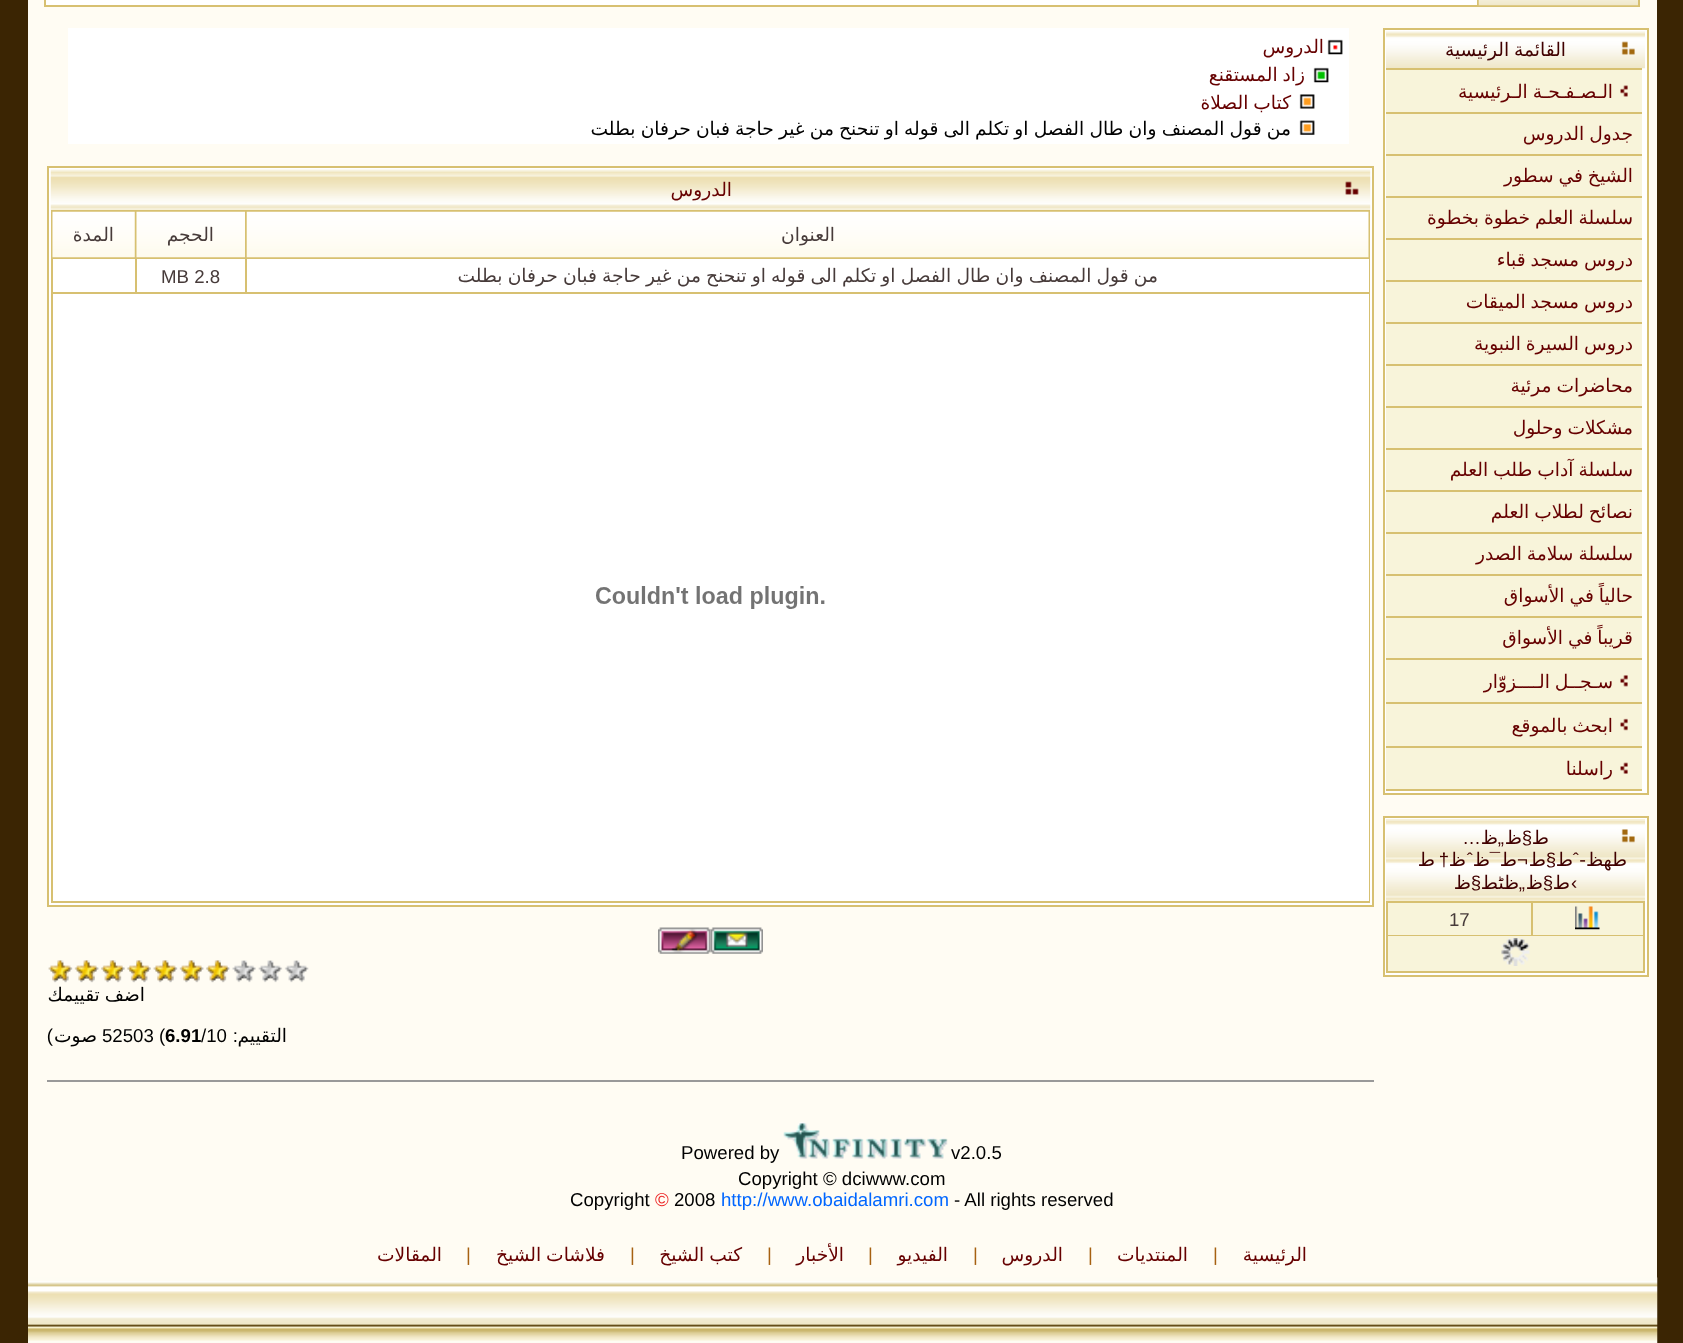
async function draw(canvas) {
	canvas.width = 1683;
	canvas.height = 1343;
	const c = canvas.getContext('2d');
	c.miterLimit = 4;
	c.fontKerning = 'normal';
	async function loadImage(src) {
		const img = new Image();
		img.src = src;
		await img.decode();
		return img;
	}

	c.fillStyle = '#3b2503';
	c.fillRect(0, 0, 1683, 1343);
	c.fillStyle = '#fffcf3';
	c.fillRect(28, 0, 1629, 1278);
	c.fillStyle = '#d7c071';
	c.fillRect(44, 0, 1596, 7);
	c.drawImage(await loadImage('img1.png'), 1478, 0, 160, 6);
	c.fillStyle = '#fff';
	c.fillRect(46, 0, 1431, 5);
	c.beginPath();
	c.rect(1384, 29, 264, 765);
	c.fill();
	c.strokeStyle = '#d7c071';
	c.lineWidth = 2;
	c.stroke();
	c.drawImage(await loadImage('img2.png'), 1386, 31, 259, 38);
	c.drawImage(await loadImage('img3.png'), 1621, 41, 14, 14);
	c.wordSpacing = '-1px';
	c.direction = 'rtl';
	c.font = '18.65px DejaVu Sans';
	c.fillStyle = '#400000';
	c.fillText('القائمة الرئيسية', 1566, 56);
	for (const [x, y, w, h, color] of [
		[1386, 70, 256, 719, '#f8f4da'],
		[1386, 789, 256, 2, '#d7c071'],
		[1386, 68, 256, 2, '#d7c071'],
	]) {
		c.fillStyle = color;
		c.fillRect(x, y, w, h);
	}
	c.drawImage(await loadImage('img4.png'), 1620, 85, 8, 12);
	c.fillStyle = '#600';
	c.fillText('الـصـفـحـة الـرئيسية', 1613, 98);
	c.fillStyle = '#d7c071';
	c.fillRect(1386, 112, 256, 2);
	c.fillStyle = '#600';
	c.fillText('جدول الدروس', 1633, 140);
	c.fillStyle = '#d7c071';
	c.fillRect(1386, 154, 256, 2);
	c.fillStyle = '#600';
	c.fillText('الشيخ في سطور', 1633, 182);
	c.fillStyle = '#d7c071';
	c.fillRect(1386, 196, 256, 2);
	c.fillStyle = '#600';
	c.fillText('سلسلة العلم خطوة بخطوة', 1633, 224);
	c.fillStyle = '#d7c071';
	c.fillRect(1386, 238, 256, 2);
	c.fillStyle = '#600';
	c.fillText('دروس مسجد قباء', 1633, 266);
	c.fillStyle = '#d7c071';
	c.fillRect(1386, 280, 256, 2);
	c.fillStyle = '#600';
	c.fillText('دروس مسجد الميقات', 1633, 308);
	c.fillStyle = '#d7c071';
	c.fillRect(1386, 322, 256, 2);
	c.fillStyle = '#600';
	c.fillText('دروس السيرة النبوية', 1633, 350);
	c.fillStyle = '#d7c071';
	c.fillRect(1386, 364, 256, 2);
	c.fillStyle = '#600';
	c.fillText('محاضرات مرئية', 1633, 392);
	c.fillStyle = '#d7c071';
	c.fillRect(1386, 406, 256, 2);
	c.fillStyle = '#600';
	c.fillText('مشكلات وحلول', 1633, 434);
	c.fillStyle = '#d7c071';
	c.fillRect(1386, 448, 256, 2);
	c.fillStyle = '#600';
	c.fillText('سلسلة آداب طلب العلم', 1633, 476);
	c.fillStyle = '#d7c071';
	c.fillRect(1386, 490, 256, 2);
	c.fillStyle = '#600';
	c.fillText('نصائح لطلاب العلم', 1633, 518);
	c.fillStyle = '#d7c071';
	c.fillRect(1386, 532, 256, 2);
	c.fillStyle = '#600';
	c.fillText('سلسلة سلامة الصدر', 1633, 560);
	c.fillStyle = '#d7c071';
	c.fillRect(1386, 574, 256, 2);
	c.fillStyle = '#600';
	c.fillText('حالياً في الأسواق', 1633, 602);
	c.fillStyle = '#d7c071';
	c.fillRect(1386, 616, 256, 2);
	c.fillStyle = '#600';
	c.fillText('قريباً في الأسواق', 1633, 644);
	c.fillStyle = '#d7c071';
	c.fillRect(1386, 658, 256, 2);
	c.drawImage(await loadImage('img5.png'), 1620, 675, 8, 12);
	c.fillStyle = '#600';
	c.fillText('سـجــل الــــزوّار', 1613, 688);
	c.fillStyle = '#d7c071';
	c.fillRect(1386, 702, 256, 2);
	c.drawImage(await loadImage('img6.png'), 1620, 718, 8, 13);
	c.fillStyle = '#600';
	c.fillText('ابحث بالموقع', 1613, 732);
	c.fillStyle = '#d7c071';
	c.fillRect(1386, 746, 256, 2);
	c.drawImage(await loadImage('img7.png'), 1620, 762, 8, 12);
	c.wordSpacing = '0px';
	c.fillStyle = '#600';
	c.fillText('راسلنا', 1613, 775);
	c.fillStyle = '#fff';
	c.beginPath();
	c.rect(1384, 817, 264, 159);
	c.fill();
	c.stroke();
	c.drawImage(await loadImage('img8.png'), 1386, 819, 259, 82);
	c.drawImage(await loadImage('img9.png'), 1621, 829, 14, 14);
	c.fillStyle = '#400000';
	c.fillText('ط', 1549, 844);
	c.font = '18.65px Liberation Sans';
	c.fillText('§', 1532, 844);
	c.font = '18.65px DejaVu Sans';
	c.fillText('ظ', 1522, 844);
	c.font = '18.65px Liberation Sans';
	c.fillText('„', 1504, 844);
	c.font = '18.65px DejaVu Sans';
	c.fillText('ظ', 1498, 844);
	c.font = '18.65px Liberation Sans';
	c.fillText('…', 1481, 844);
	c.font = '18.65px DejaVu Sans';
	c.fillText('طھظ-', 1627, 866);
	c.font = '18.65px Liberation Sans';
	c.fillText('ˆ', 1579, 866);
	c.font = '18.65px DejaVu Sans';
	c.fillText('ط', 1573, 866);
	c.font = '18.65px Liberation Sans';
	c.fillText('§', 1556, 866);
	c.font = '18.65px DejaVu Sans';
	c.fillText('ط', 1546, 866);
	c.fillText('ط', 1517, 866);
	c.font = '18.65px Liberation Sans';
	c.fillText('¯', 1500, 866);
	c.font = '18.65px DejaVu Sans';
	c.fillText('ظ', 1490, 866);
	c.font = '18.65px Liberation Sans';
	c.fillText('ˆ', 1473, 866);
	c.font = '18.65px DejaVu Sans';
	c.fillText('ظ', 1466, 866);
	c.font = '18.65px Liberation Sans';
	c.fillText('†', 1449, 866);
	c.font = '18.65px DejaVu Sans';
	c.fillText('ط', 1435, 866);
	c.font = '18.65px Liberation Sans';
	c.fillText('¬', 1528, 866);
	c.direction = 'ltr';
	c.fillText('‹', 1571, 889);
	c.direction = 'rtl';
	c.font = '18.65px DejaVu Sans';
	c.fillText('ط', 1570, 889);
	c.font = '18.65px Liberation Sans';
	c.fillText('§', 1553, 889);
	c.font = '18.65px DejaVu Sans';
	c.fillText('ظ', 1543, 889);
	c.fillText('ظٹط', 1519, 889);
	c.font = '18.65px Liberation Sans';
	c.fillText('§', 1481, 889);
	c.font = '18.65px DejaVu Sans';
	c.fillText('ظ', 1471, 889);
	c.font = '18.65px Liberation Sans';
	c.fillText('„', 1525, 889);
	c.fillStyle = '#d7c071';
	c.fillRect(1386, 901, 259, 72);
	c.fillStyle = '#f8f4da';
	c.fillRect(1533, 903, 110, 32);
	c.drawImage(await loadImage('img10.png'), 1575, 906, 25, 24);
	c.fillRect(1388, 903, 143, 32);
	c.direction = 'ltr';
	c.fillStyle = '#473b3a';
	c.fillText('17', 1449, 926);
	c.fillStyle = '#f8f4da';
	c.fillRect(1388, 936, 255, 35);
	c.drawImage(await loadImage('img11.png'), 1501, 938, 29, 28);
	c.fillStyle = '#fff';
	c.fillRect(68, 28, 1281, 116);
	c.drawImage(await loadImage('img12.png'), 1327, 39, 16, 16);
	c.direction = 'rtl';
	c.font = '18.65px DejaVu Sans';
	c.fillStyle = '#600';
	c.fillText('الدروس', 1324, 53);
	c.drawImage(await loadImage('img13.png'), 1313, 67, 16, 16);
	c.wordSpacing = '-1px';
	c.fillText('زاد المستقنع', 1305, 81);
	c.drawImage(await loadImage('img14.png'), 1299, 94, 16, 15);
	c.fillText('كتاب الصلاة', 1291, 109);
	c.drawImage(await loadImage('img15.png'), 1299, 120, 16, 15);
	c.wordSpacing = '-0.75px';
	c.fillStyle = '#000';
	c.fillText('من قول المصنف وان طال الفصل او تكلم الى قوله او تنحنح من غير حاجة فبان حرفان بطلت', 1291, 135);
	c.fillStyle = '#fff';
	c.beginPath();
	c.rect(48, 167, 1325, 739);
	c.fill();
	c.stroke();
	c.drawImage(await loadImage('img16.png'), 50, 169, 1321, 41);
	c.drawImage(await loadImage('img17.png'), 1345, 181, 14, 14);
	c.wordSpacing = '0px';
	c.fillStyle = '#600';
	c.fillText('الدروس', 732, 196);
	c.fillStyle = '#d7c071';
	c.fillRect(51, 210, 1319, 693);
	c.drawImage(await loadImage('img18.png'), 246, 211, 1123, 47);
	c.fillStyle = '#473b3a';
	c.fillText('العنوان', 835, 241);
	c.drawImage(await loadImage('img19.png'), 136, 211, 109, 47);
	c.fillText('الحجم', 214, 241);
	c.drawImage(await loadImage('img20.png'), 52, 211, 83, 47);
	c.fillText('المدة', 114, 241);
	c.fillStyle = '#fff';
	c.fillRect(247, 259, 1122, 33);
	c.wordSpacing = '-0.75px';
	c.fillStyle = '#473b3a';
	c.fillText('من قول المصنف وان طال الفصل او تكلم الى قوله او تنحنح من غير حاجة فبان حرفان بطلت', 1158, 282);
	c.fillStyle = '#fff';
	c.fillRect(137, 259, 108, 33);
	c.wordSpacing = '0px';
	c.direction = 'ltr';
	c.font = '18.65px Liberation Sans';
	c.fillStyle = '#473b3a';
	c.fillText('MB 2.8', 161, 283);
	c.fillStyle = '#fff';
	c.fillRect(53, 259, 82, 33);
	c.fillRect(53, 294, 1316, 607);
	c.drawImage(await loadImage('img21.png'), 596, 586, 229, 23);
	c.drawImage(await loadImage('img23.png'), 658, 927, 53, 27);
	c.drawImage(await loadImage('img22.png'), 710, 927, 53, 27);
	c.fillStyle = '#999';
	c.fillRect(47, 1080, 1327, 2);
	c.drawImage(await loadImage('img24.png'), 48, 960, 261, 23);
	c.drawImage(await loadImage('img25.png'), 48, 960, 181, 23);
	c.wordSpacing = '-1px';
	c.direction = 'rtl';
	c.font = '18.65px DejaVu Sans';
	c.fillStyle = '#000';
	c.fillText('اضف تقييمك', 145, 1001);
	c.wordSpacing = '0px';
	c.fillText('التقييم', 287, 1042);
	c.font = '18.65px Liberation Sans';
	c.fillText(':', 238, 1042);
	c.direction = 'ltr';
	c.fillText('/10', 201, 1042);
	c.font = 'bold 18.65px Liberation Sans';
	c.fillText('6.91', 165, 1042);
	c.font = '18.65px Liberation Sans';
	c.fillText('52503 (', 102, 1042);
	c.direction = 'rtl';
	c.font = '18.65px DejaVu Sans';
	c.fillText('صوت', 97, 1042);
	c.font = '18.65px Liberation Sans';
	c.fillText(')', 53, 1042);
	c.direction = 'ltr';
	c.fillText('v2.0.5', 951, 1159);
	c.drawImage(await loadImage('img26.png'), 783, 1122, 165, 37);
	for (const [text, x, y] of [
		['Powered by', 681, 1159],
		['Copyright © dciwww.com', 738, 1185],
		['- All rights reserved', 954, 1206],
	]) {
		c.fillText(text, x, y);
	}
	c.fillStyle = '#06f';
	c.fillText('http://www.obaidalamri.com', 721, 1206);
	c.fillStyle = '#000';
	c.fillText('2008', 674, 1206);
	c.fillStyle = '#ed2727';
	c.fillText('©', 655, 1206);
	c.fillStyle = '#000';
	c.fillText('Copyright', 570, 1206);
	c.direction = 'rtl';
	c.font = '18.65px DejaVu Sans';
	c.fillStyle = '#600';
	c.fillText('الرئيسية', 1307, 1261);
	c.direction = 'ltr';
	c.font = '18.65px Liberation Sans';
	c.fillStyle = '#a66111';
	c.fillText('|', 1213, 1261);
	c.direction = 'rtl';
	c.font = '18.65px DejaVu Sans';
	c.fillStyle = '#600';
	c.fillText('المنتديات', 1188, 1261);
	c.direction = 'ltr';
	c.font = '18.65px Liberation Sans';
	c.fillStyle = '#a66111';
	c.fillText('|', 1088, 1261);
	c.direction = 'rtl';
	c.font = '18.65px DejaVu Sans';
	c.fillStyle = '#600';
	c.fillText('الدروس', 1063, 1261);
	c.direction = 'ltr';
	c.font = '18.65px Liberation Sans';
	c.fillStyle = '#a66111';
	c.fillText('|', 973, 1261);
	c.direction = 'rtl';
	c.font = '18.65px DejaVu Sans';
	c.fillStyle = '#600';
	c.fillText('الفيديو', 948, 1261);
	c.direction = 'ltr';
	c.font = '18.65px Liberation Sans';
	c.fillStyle = '#a66111';
	c.fillText('|', 868, 1261);
	c.direction = 'rtl';
	c.font = '18.65px DejaVu Sans';
	c.fillStyle = '#600';
	c.fillText('الأخبار', 844, 1261);
	c.direction = 'ltr';
	c.font = '18.65px Liberation Sans';
	c.fillStyle = '#a66111';
	c.fillText('|', 767, 1261);
	c.wordSpacing = '-1px';
	c.direction = 'rtl';
	c.font = '18.65px DejaVu Sans';
	c.fillStyle = '#600';
	c.fillText('كتب الشيخ', 742, 1261);
	c.wordSpacing = '0px';
	c.direction = 'ltr';
	c.font = '18.65px Liberation Sans';
	c.fillStyle = '#a66111';
	c.fillText('|', 630, 1261);
	c.wordSpacing = '-1px';
	c.direction = 'rtl';
	c.font = '18.65px DejaVu Sans';
	c.fillStyle = '#600';
	c.fillText('فلاشات الشيخ', 605, 1261);
	c.wordSpacing = '0px';
	c.direction = 'ltr';
	c.font = '18.65px Liberation Sans';
	c.fillStyle = '#a66111';
	c.fillText('|', 466, 1261);
	c.direction = 'rtl';
	c.font = '18.65px DejaVu Sans';
	c.fillStyle = '#600';
	c.fillText('المقالات', 442, 1261);
	c.drawImage(await loadImage('img27.png'), 28, 1277, 1630, 66);
}

draw(document.querySelector('canvas'));
